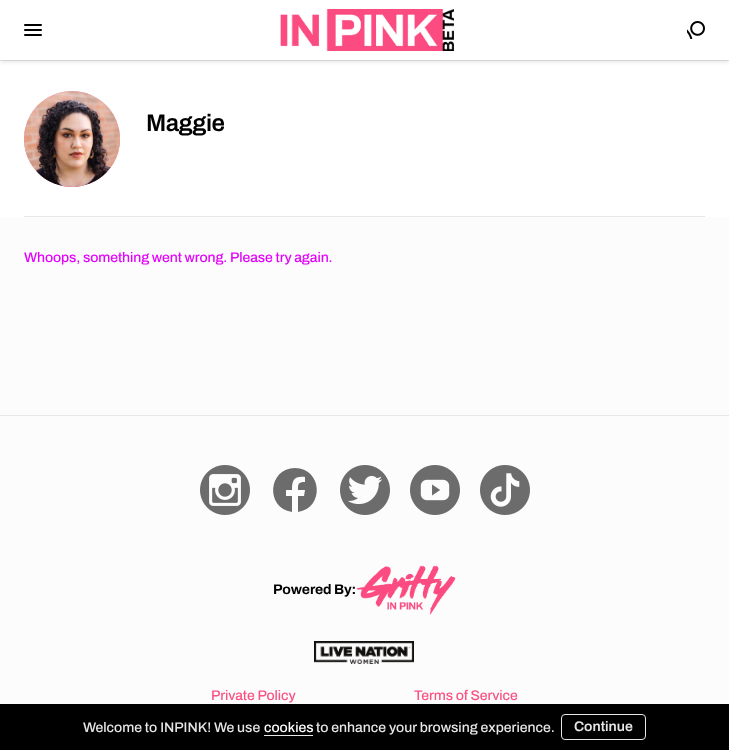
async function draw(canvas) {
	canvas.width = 729;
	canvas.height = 750;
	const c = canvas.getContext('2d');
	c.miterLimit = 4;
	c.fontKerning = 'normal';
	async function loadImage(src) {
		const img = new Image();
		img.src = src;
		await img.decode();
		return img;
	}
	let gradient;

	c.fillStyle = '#fcfcfc';
	c.fillRect(0, 0, 729, 750);
	c.fillStyle = '#fff';
	c.fillRect(0, 61, 729, 156);
	c.fillStyle = '#e7e7e7';
	c.fillRect(0, 60, 729, 1);
	c.fillStyle = '#0000001a';
	c.filter = 'blur(2px)';
	c.beginPath();
	c.rect(0, 2, 729, 60);
	c.fill();
	c.filter = 'none';
	c.fillStyle = '#fff';
	c.fillRect(0, 0, 729, 60);
	c.fillStyle = '#000';
	c.beginPath();
	c.roundRect(24, 24, 18, 2, 1);
	c.fill();
	c.beginPath();
	c.roundRect(24, 29, 18, 2, 1);
	c.fill();
	c.beginPath();
	c.roundRect(24, 34, 18, 2, 1);
	c.fill();
	c.drawImage(await loadImage('img1.png'), 280, 9, 174, 42);
	c.drawImage(await loadImage('img2.png'), 687, 21, 18, 18);
	c.fillStyle = '#e7e7e7';
	c.fillRect(24, 216, 681, 1);
	gradient = c.createLinearGradient(72, 91, 72, 187);
	gradient.addColorStop(0, '#f69fc4');
	gradient.addColorStop(1, '#f95284');
	c.fillStyle = gradient;
	c.beginPath();
	c.arc(72, 139, 48, 0, 2 * Math.PI);
	c.fill();
	c.drawImage(await loadImage('img3.png'), 24, 91, 96, 96);
	c.letterSpacing = '-0.5px';
	c.font = '600 24px Archivo';
	c.fillStyle = '#000';
	c.fillText('Maggie', 146, 131);
	c.letterSpacing = '-0.1px';
	c.font = '500 14px Archivo';
	c.fillStyle = '#e303fc';
	c.fillText('Whoops, something went wrong. Please try again.', 24, 262);
	c.fillStyle = '#e7e7e7';
	c.fillRect(0, 415, 729, 1);
	c.drawImage(await loadImage('img4.png'), 200, 465, 50, 50);
	c.fillStyle = '#6c6c6c';
	c.beginPath();
	c.moveTo(295, 468);
	c.bezierCurveTo(268, 468, 265, 508, 292, 512);
	c.lineTo(292, 496);
	c.lineTo(286, 496);
	c.lineTo(286, 490);
	c.lineTo(292, 490);
	c.bezierCurveTo(292, 480, 294, 476, 305, 477);
	c.lineTo(305, 482);
	c.bezierCurveTo(298, 482, 298, 484, 298, 490);
	c.lineTo(305, 490);
	c.lineTo(304, 496);
	c.lineTo(298, 496);
	c.lineTo(298, 512);
	c.bezierCurveTo(325, 508, 322, 468, 295, 468);
	c.closePath();
	c.fill();
	c.drawImage(await loadImage('img5.png'), 340, 465, 50, 50);
	c.drawImage(await loadImage('img6.png'), 410, 465, 50, 50);
	c.drawImage(await loadImage('img7.png'), 480, 465, 50, 50);
	c.font = 'bold 14px Archivo';
	c.fillStyle = '#000';
	c.fillText('Powered By:', 273, 594);
	c.drawImage(await loadImage('img8.png'), 356, 565, 100, 50);
	c.drawImage(await loadImage('img9.png'), 314, 641, 100, 23);
	c.font = '500 14px Archivo';
	c.fillStyle = '#f95284';
	c.fillText('Private Policy', 211, 700);
	c.fillText('Terms of Service', 414, 700);
	c.fillStyle = '#000';
	c.fillRect(0, 704, 729, 46);
	c.letterSpacing = '0px';
	c.fillStyle = '#e7e7e7';
	c.fillText('Welcome to INPINK! We use', 83, 732);
	c.fillStyle = '#fff';
	c.fillText('cookies', 264, 732);
	c.fillStyle = '#e7e7e7';
	c.fillRect(264, 735, 49, 1);
	c.fillText('to enhance your browsing experience.', 316, 732);
	c.beginPath();
	c.roundRect(561.5, 714.5, 84, 25, 3.5);
	c.strokeStyle = '#e7e7e7';
	c.stroke();
	c.font = '600 14px Archivo';
	c.fillText('Continue', 574, 731);
}

draw(document.querySelector('canvas'));
